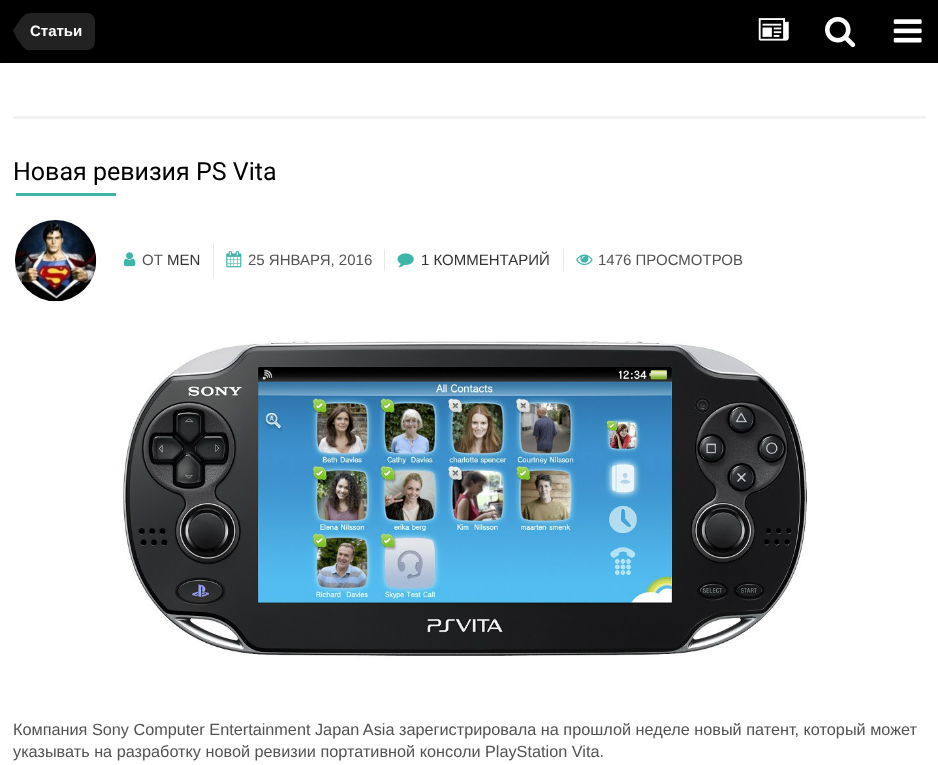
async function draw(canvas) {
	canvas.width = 938;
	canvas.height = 765;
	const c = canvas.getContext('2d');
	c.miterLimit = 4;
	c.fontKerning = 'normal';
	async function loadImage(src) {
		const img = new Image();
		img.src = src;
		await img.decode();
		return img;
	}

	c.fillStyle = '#eef2f5';
	c.fillRect(0, 0, 938, 765);
	c.fillStyle = '#000';
	c.fillRect(0, 0, 938, 63);
	c.fillStyle = '#222';
	c.beginPath();
	c.roundRect(30, 13, 65, 37, [0, 8, 8, 0]);
	c.fill();
	c.beginPath();
	c.moveTo(13, 31);
	c.lineTo(30, 31);
	c.lineTo(30, 50.5);
	c.bezierCurveTo(28, 50.5, 25.5, 49.5, 23, 47);
	c.lineTo(18, 40);
	c.closePath();
	c.moveTo(30, 13);
	c.lineTo(30, 31);
	c.lineTo(13, 31);
	c.lineTo(13, 30.5);
	c.lineTo(20.5, 19);
	c.lineTo(24, 15.5);
	c.bezierCurveTo(25.5, 14, 27.5, 13, 30, 13);
	c.closePath();
	c.fill();
	c.font = 'bold 15px Liberation Sans';
	c.fillStyle = '#fff';
	c.fillText('Статьи', 30, 36);
	c.drawImage(await loadImage('img1.png'), 758, 18, 31, 23);
	c.drawImage(await loadImage('img2.png'), 825, 17, 31, 31);
	c.drawImage(await loadImage('img3.png'), 893, 19, 29, 24);
	c.beginPath();
	c.roundRect(0, 63, 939, 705, 2.5);
	c.fill();
	c.fillStyle = '#f2f2f2';
	c.fillRect(13, 116, 913, 3);
	c.font = '25px Roboto';
	c.fillStyle = '#000';
	c.fillText('Новая ревизия PS Vita', 13, 180);
	c.fillStyle = '#3fb5a8';
	c.fillRect(16, 193, 100, 3);
	c.drawImage(await loadImage('img4.png'), 15, 220, 82, 82);
	c.fillStyle = '#e8e8e8';
	c.fillRect(213, 243, 1, 35);
	c.drawImage(await loadImage('img5.png'), 123, 252, 13, 15);
	c.font = '15px Liberation Sans';
	c.fillStyle = '#525252';
	c.fillText('ОТ', 142, 265);
	c.fillStyle = '#333';
	c.fillText('MEN', 167, 265);
	c.fillStyle = '#e8e8e8';
	c.fillRect(384, 249, 1, 22);
	c.drawImage(await loadImage('img6.png'), 226, 251, 16, 17);
	c.fillStyle = '#525252';
	c.fillText('25 ЯНВАРЯ, 2016', 248, 265);
	c.fillStyle = '#e8e8e8';
	c.fillRect(563, 249, 1, 22);
	c.drawImage(await loadImage('img7.png'), 397, 253, 17, 15);
	c.fillStyle = '#333';
	c.fillText('1 КОММЕНТАРИЙ', 421, 265);
	c.drawImage(await loadImage('img8.png'), 576, 254, 17, 11);
	c.fillStyle = '#525252';
	c.fillText('1476 ПРОСМОТРОВ', 598, 265);
	c.drawImage(await loadImage('img9.png'), 122, 340, 685, 319);
	c.font = '16.25px Liberation Sans';
	c.fillText('Компания Sony Computer Entertainment Japan Asia зарегистрировала на прошлой неделе новый патент, который может', 13, 735);
	c.fillText('указывать на разработку новой ревизии портативной консоли PlayStation Vita.', 13, 757);
}

draw(document.querySelector('canvas'));
